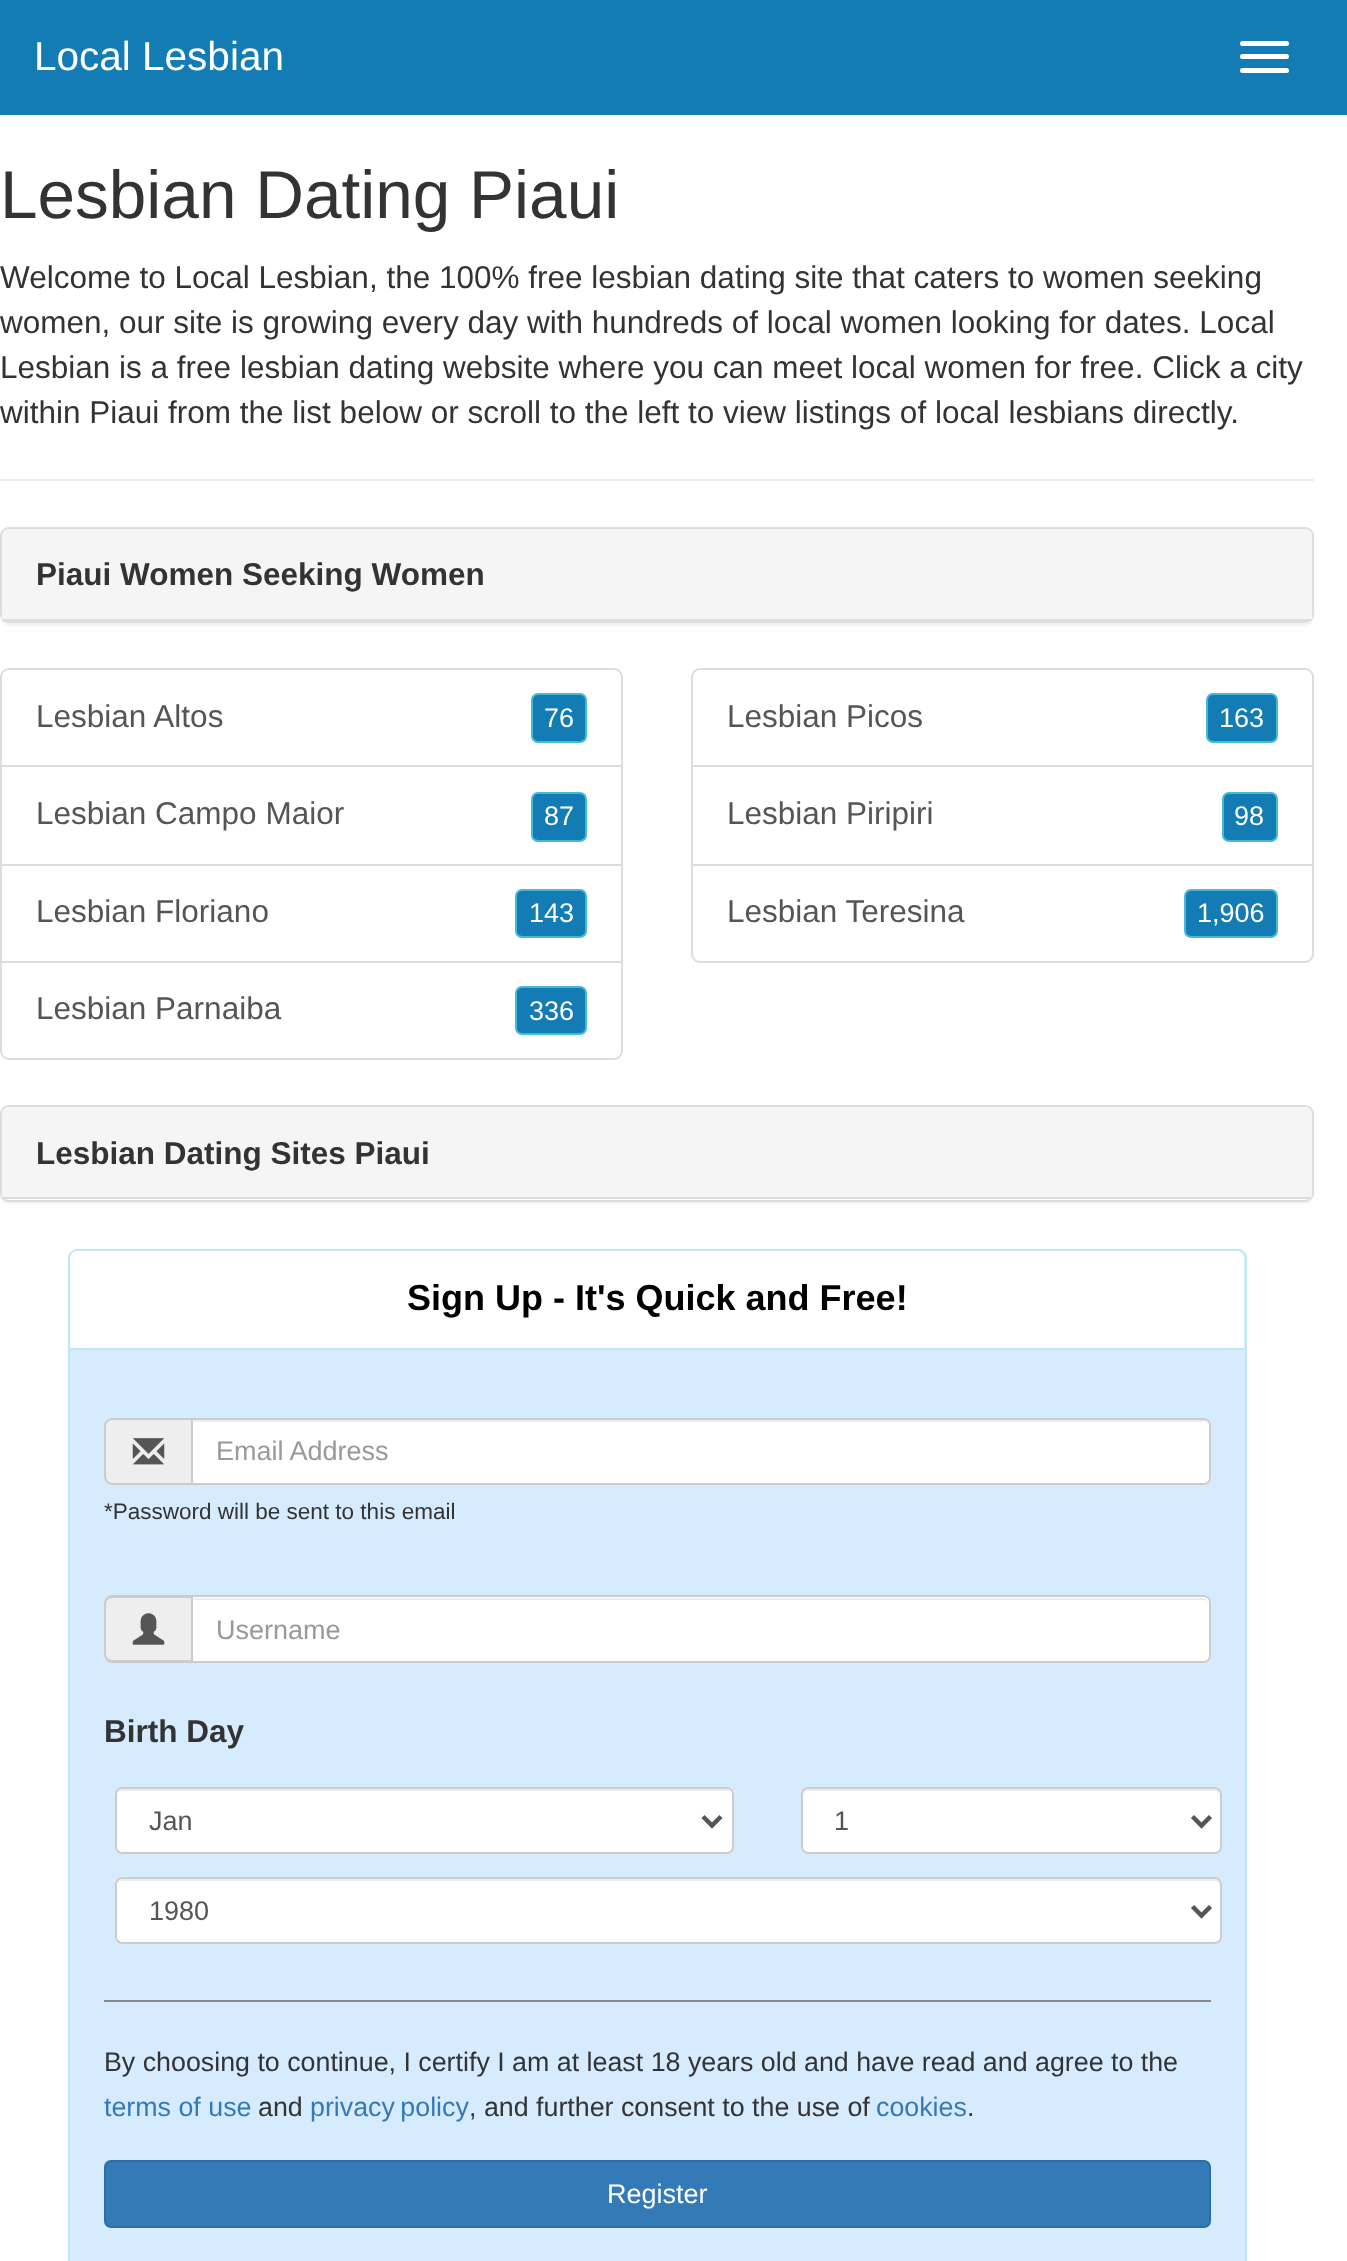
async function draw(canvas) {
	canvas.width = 1347;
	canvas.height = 2261;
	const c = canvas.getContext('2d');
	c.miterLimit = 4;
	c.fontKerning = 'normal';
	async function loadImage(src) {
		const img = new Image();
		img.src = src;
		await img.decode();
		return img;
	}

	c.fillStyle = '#fff';
	c.fillRect(0, 0, 1347, 2261);
	c.fillStyle = '#137cb4';
	c.fillRect(0, 0, 1347, 115);
	c.font = '40.5px Liberation Sans';
	c.fillStyle = '#fff';
	c.fillText('Local Lesbian', 34, 70);
	c.beginPath();
	c.roundRect(1240, 41, 49, 5, 2.5);
	c.fill();
	c.beginPath();
	c.roundRect(1240, 54, 49, 5, 2.5);
	c.fill();
	c.beginPath();
	c.roundRect(1240, 68, 49, 5, 2.5);
	c.fill();
	c.font = '67.5px Liberation Sans';
	c.fillStyle = '#333';
	c.fillText('Lesbian Dating Piaui', 0, 218);
	c.font = '31.5px Liberation Sans';
	for (const [text, x, y] of [
		['Welcome to Local Lesbian, the 100% free lesbian dating site that caters to women seeking', 0, 288],
		['women, our site is growing every day with hundreds of local women looking for dates. Local', 0, 333],
		['Lesbian is a free lesbian dating website where you can meet local women for free. Click a city', 0, 378],
		['within Piaui from the list below or scroll to the left to view listings of local lesbians directly.', 0, 423],
	]) {
		c.fillText(text, x, y);
	}
	c.fillStyle = '#eee';
	c.fillRect(0, 479, 1314, 2);
	c.fillStyle = '#0000000d';
	c.filter = 'blur(1px)';
	c.beginPath();
	c.roundRect(0, 529, 1314, 97, 9);
	c.fill();
	c.filter = 'none';
	c.beginPath();
	c.roundRect(1, 528, 1312, 94, 8);
	c.strokeStyle = '#ddd';
	c.lineWidth = 2;
	c.stroke();
	c.fillStyle = '#f5f5f5';
	c.beginPath();
	c.roundRect(2, 529, 1310, 92, [7, 7, 0, 0]);
	c.fill();
	c.fillStyle = '#ddd';
	c.fillRect(2, 619, 1310, 2);
	c.font = 'bold 31.5px Liberation Sans';
	c.fillStyle = '#333';
	c.fillText('Piaui Women Seeking Women', 36, 585);
	c.beginPath();
	c.roundRect(1, 669, 621, 97, [8, 8, 0, 0]);
	c.stroke();
	c.font = '31.5px Liberation Sans';
	c.fillStyle = '#555';
	c.fillText('Lesbian Altos', 36, 727);
	c.fillStyle = '#137cb4';
	c.beginPath();
	c.roundRect(532, 694, 54, 48, 6);
	c.fill();
	c.strokeStyle = '#46b8da';
	c.stroke();
	c.font = '27px Liberation Sans';
	c.fillStyle = '#fff';
	c.fillText('76', 544, 727);
	c.strokeStyle = '#ddd';
	c.strokeRect(1, 766, 621, 99);
	c.font = '31.5px Liberation Sans';
	c.fillStyle = '#555';
	c.fillText('Lesbian Campo Maior', 36, 824);
	c.fillStyle = '#137cb4';
	c.beginPath();
	c.roundRect(532, 793, 54, 48, 6);
	c.fill();
	c.strokeStyle = '#46b8da';
	c.stroke();
	c.font = '27px Liberation Sans';
	c.fillStyle = '#fff';
	c.fillText('87', 544, 825);
	c.strokeStyle = '#ddd';
	c.strokeRect(1, 865, 621, 97);
	c.font = '31.5px Liberation Sans';
	c.fillStyle = '#555';
	c.fillText('Lesbian Floriano', 36, 922);
	c.fillStyle = '#137cb4';
	c.beginPath();
	c.roundRect(516, 890, 70, 47, 6);
	c.fill();
	c.strokeStyle = '#46b8da';
	c.stroke();
	c.font = '27px Liberation Sans';
	c.fillStyle = '#fff';
	c.fillText('143', 529, 922);
	c.beginPath();
	c.roundRect(1, 962, 621, 97, [0, 0, 8, 8]);
	c.fill();
	c.strokeStyle = '#ddd';
	c.stroke();
	c.font = '31.5px Liberation Sans';
	c.fillStyle = '#555';
	c.fillText('Lesbian Parnaiba', 36, 1019);
	c.fillStyle = '#137cb4';
	c.beginPath();
	c.roundRect(516, 987, 70, 47, 6);
	c.fill();
	c.strokeStyle = '#46b8da';
	c.stroke();
	c.font = '27px Liberation Sans';
	c.fillStyle = '#fff';
	c.fillText('336', 529, 1020);
	c.beginPath();
	c.roundRect(692, 669, 621, 97, [8, 8, 0, 0]);
	c.strokeStyle = '#ddd';
	c.stroke();
	c.font = '31.5px Liberation Sans';
	c.fillStyle = '#555';
	c.fillText('Lesbian Picos', 727, 727);
	c.fillStyle = '#137cb4';
	c.beginPath();
	c.roundRect(1207, 694, 70, 48, 6);
	c.fill();
	c.strokeStyle = '#46b8da';
	c.stroke();
	c.font = '27px Liberation Sans';
	c.fillStyle = '#fff';
	c.fillText('163', 1219, 727);
	c.strokeStyle = '#ddd';
	c.strokeRect(692, 766, 621, 99);
	c.font = '31.5px Liberation Sans';
	c.fillStyle = '#555';
	c.fillText('Lesbian Piripiri', 727, 824);
	c.fillStyle = '#137cb4';
	c.beginPath();
	c.roundRect(1223, 793, 54, 48, 6);
	c.fill();
	c.strokeStyle = '#46b8da';
	c.stroke();
	c.font = '27px Liberation Sans';
	c.fillStyle = '#fff';
	c.fillText('98', 1234, 825);
	c.beginPath();
	c.roundRect(692, 865, 621, 97, [0, 0, 8, 8]);
	c.fill();
	c.strokeStyle = '#ddd';
	c.stroke();
	c.font = '31.5px Liberation Sans';
	c.fillStyle = '#555';
	c.fillText('Lesbian Teresina', 727, 922);
	c.fillStyle = '#137cb4';
	c.beginPath();
	c.roundRect(1185, 890, 92, 47, 6);
	c.fill();
	c.strokeStyle = '#46b8da';
	c.stroke();
	c.font = '27px Liberation Sans';
	c.fillStyle = '#fff';
	c.fillText('1,906', 1197, 922);
	c.fillStyle = '#0000000d';
	c.filter = 'blur(1px)';
	c.beginPath();
	c.roundRect(0, 1107, 1314, 97, 9);
	c.fill();
	c.filter = 'none';
	c.fillStyle = '#fff';
	c.beginPath();
	c.roundRect(1, 1106, 1312, 95, 8);
	c.fill();
	c.strokeStyle = '#ddd';
	c.stroke();
	c.fillStyle = '#f5f5f5';
	c.beginPath();
	c.roundRect(2, 1107, 1310, 92, [7, 7, 0, 0]);
	c.fill();
	c.fillStyle = '#ddd';
	c.fillRect(2, 1197, 1310, 2);
	c.font = 'bold 31.5px Liberation Sans';
	c.fillStyle = '#333';
	c.fillText('Lesbian Dating Sites Piaui', 36, 1164);
	c.fillStyle = '#d7ebff';
	c.beginPath();
	c.roundRect(69, 1250, 1177, 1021, 8);
	c.fill();
	c.strokeStyle = '#bce8f1';
	c.stroke();
	c.fillStyle = '#fff';
	c.beginPath();
	c.roundRect(70, 1251, 1174, 99, [7, 7, 0, 0]);
	c.fill();
	c.fillStyle = '#bce8f1';
	c.fillRect(70, 1348, 1174, 2);
	c.font = 'bold 36px Liberation Sans';
	c.fillStyle = '#000';
	c.fillText('Sign Up - It\'s Quick and Free!', 407, 1310);
	c.fillStyle = '#eee';
	c.beginPath();
	c.roundRect(104, 1418, 87, 67, [9, 0, 0, 9]);
	c.fill();
	c.fillStyle = '#ccc';
	c.beginPath();
	c.moveTo(112, 1418);
	c.lineTo(191, 1418);
	c.lineTo(191, 1485);
	c.lineTo(112, 1485);
	c.bezierCurveTo(108, 1485, 104, 1481, 104, 1476);
	c.lineTo(104, 1426);
	c.bezierCurveTo(104, 1422, 108, 1418, 112, 1418);
	c.closePath();
	c.moveTo(112, 1420);
	c.lineTo(191, 1420);
	c.lineTo(191, 1483);
	c.lineTo(112, 1483);
	c.bezierCurveTo(109, 1483, 106, 1480, 106, 1476);
	c.lineTo(106, 1426);
	c.bezierCurveTo(106, 1423, 109, 1420, 112, 1420);
	c.closePath();
	c.fill('evenodd');
	c.drawImage(await loadImage('img1.png'), 132, 1438, 33, 27);
	c.fillStyle = '#fff';
	c.beginPath();
	c.roundRect(191, 1418, 1020, 67, [0, 7, 7, 0]);
	c.fill();
	c.fillStyle = '#ececec';
	c.beginPath();
	c.moveTo(194, 1422);
	c.lineTo(1204, 1422);
	c.bezierCurveTo(1206, 1422, 1208, 1424, 1208, 1426);
	c.bezierCurveTo(1208, 1423, 1206, 1420, 1203, 1420);
	c.lineTo(194, 1420);
	c.closePath();
	c.fill();
	c.beginPath();
	c.roundRect(192, 1419, 1018, 65, [0, 6, 6, 0]);
	c.strokeStyle = '#ccc';
	c.stroke();
	c.font = '27px Liberation Sans';
	c.fillStyle = '#999';
	c.fillText('Email Address', 216, 1460);
	c.font = '22.5px Liberation Sans';
	c.fillStyle = '#333';
	c.fillText('*Password will be sent to this email', 104, 1519);
	c.fillStyle = '#eee';
	c.beginPath();
	c.roundRect(104, 1595, 87, 68, [9, 0, 0, 9]);
	c.fill();
	c.fillStyle = '#ccc';
	c.beginPath();
	c.moveTo(112, 1595);
	c.lineTo(191, 1595);
	c.lineTo(191, 1663);
	c.lineTo(112, 1663);
	c.bezierCurveTo(108, 1663, 104, 1659, 104, 1654);
	c.lineTo(104, 1604);
	c.bezierCurveTo(104, 1599, 108, 1595, 112, 1595);
	c.closePath();
	c.moveTo(112, 1598);
	c.lineTo(191, 1598);
	c.lineTo(191, 1660);
	c.lineTo(112, 1660);
	c.bezierCurveTo(109, 1660, 106, 1657, 106, 1654);
	c.lineTo(106, 1604);
	c.bezierCurveTo(106, 1601, 109, 1598, 112, 1598);
	c.closePath();
	c.fill('evenodd');
	c.drawImage(await loadImage('img2.png'), 132, 1613, 33, 32);
	c.fillStyle = '#fff';
	c.beginPath();
	c.roundRect(191, 1595, 1020, 68, [0, 7, 7, 0]);
	c.fill();
	c.fillStyle = '#ececec';
	c.beginPath();
	c.moveTo(194, 1600);
	c.lineTo(1204, 1600);
	c.bezierCurveTo(1206, 1600, 1208, 1602, 1208, 1604);
	c.bezierCurveTo(1208, 1601, 1206, 1598, 1203, 1598);
	c.lineTo(194, 1598);
	c.closePath();
	c.fill();
	c.beginPath();
	c.roundRect(192, 1596, 1018, 66, [0, 6, 6, 0]);
	c.stroke();
	c.font = '27px Liberation Sans';
	c.fillStyle = '#999';
	c.fillText('Username', 216, 1639);
	c.font = 'bold 31.5px Liberation Sans';
	c.fillStyle = '#333';
	c.fillText('Birth Day', 104, 1742);
	c.fillStyle = '#fff';
	c.beginPath();
	c.roundRect(115, 1787, 619, 67, 7);
	c.fill();
	c.fillStyle = '#ececec';
	c.beginPath();
	c.moveTo(122, 1791);
	c.lineTo(727, 1791);
	c.bezierCurveTo(729, 1791, 731, 1793, 731, 1796);
	c.bezierCurveTo(731, 1793, 730, 1789, 726, 1789);
	c.lineTo(122, 1789);
	c.bezierCurveTo(118, 1789, 117, 1793, 117, 1796);
	c.bezierCurveTo(117, 1793, 119, 1791, 122, 1791);
	c.closePath();
	c.fill();
	c.beginPath();
	c.roundRect(116, 1788, 617, 65, 6);
	c.stroke();
	c.beginPath();
	c.moveTo(703, 1816.5);
	c.lineTo(712, 1825.5);
	c.lineTo(721, 1816.5);
	c.strokeStyle = '#555';
	c.lineWidth = 4.5;
	c.stroke();
	c.font = '27px Liberation Sans';
	c.fillStyle = '#555';
	c.fillText('Jan', 149, 1830);
	c.fillStyle = '#fff';
	c.beginPath();
	c.roundRect(801, 1787, 421, 67, 7);
	c.fill();
	c.fillStyle = '#ececec';
	c.beginPath();
	c.moveTo(808, 1791);
	c.lineTo(1215, 1791);
	c.bezierCurveTo(1217, 1791, 1220, 1793, 1220, 1796);
	c.lineTo(1220, 1794);
	c.bezierCurveTo(1220, 1791, 1218, 1789, 1215, 1789);
	c.lineTo(808, 1789);
	c.bezierCurveTo(805, 1789, 803, 1791, 803, 1794);
	c.lineTo(803, 1796);
	c.bezierCurveTo(803, 1793, 805, 1791, 808, 1791);
	c.closePath();
	c.fill();
	c.beginPath();
	c.roundRect(802, 1788, 419, 65, 6);
	c.strokeStyle = '#ccc';
	c.lineWidth = 2;
	c.stroke();
	c.beginPath();
	c.moveTo(1192.5, 1816.5);
	c.lineTo(1201.5, 1825.5);
	c.lineTo(1210.5, 1816.5);
	c.strokeStyle = '#555';
	c.lineWidth = 4.5;
	c.stroke();
	c.fillStyle = '#555';
	c.fillText('1', 834, 1830);
	c.fillStyle = '#fff';
	c.beginPath();
	c.roundRect(115, 1877, 1107, 67, 7);
	c.fill();
	c.fillStyle = '#ececec';
	c.beginPath();
	c.moveTo(122, 1881);
	c.lineTo(1215, 1881);
	c.bezierCurveTo(1217, 1881, 1220, 1883, 1220, 1886);
	c.lineTo(1220, 1884);
	c.bezierCurveTo(1220, 1881, 1218, 1879, 1215, 1879);
	c.lineTo(122, 1879);
	c.bezierCurveTo(119, 1879, 117, 1881, 117, 1884);
	c.lineTo(117, 1886);
	c.bezierCurveTo(117, 1883, 119, 1881, 122, 1881);
	c.closePath();
	c.fill();
	c.beginPath();
	c.roundRect(116, 1878, 1105, 65, 6);
	c.strokeStyle = '#ccc';
	c.lineWidth = 2;
	c.stroke();
	c.beginPath();
	c.moveTo(1192.5, 1906.5);
	c.lineTo(1201.5, 1915.5);
	c.lineTo(1210.5, 1906.5);
	c.strokeStyle = '#555';
	c.lineWidth = 4.5;
	c.stroke();
	c.fillStyle = '#555';
	c.fillText('1980', 149, 1920);
	c.fillStyle = '#888';
	c.fillRect(104, 2000, 1107, 2);
	c.font = '26.8px Liberation Sans';
	c.fillStyle = '#333';
	c.fillText('By choosing to continue, I certify I am at least 18 years old and have read and agree to the', 104, 2071);
	c.fillStyle = '#337ab7';
	c.fillText('terms of use', 104, 2116);
	c.fillStyle = '#333';
	c.fillText('and', 258, 2116);
	c.wordSpacing = '-2px';
	c.fillStyle = '#337ab7';
	c.fillText('privacy policy', 310, 2116);
	c.wordSpacing = '0px';
	c.fillStyle = '#333';
	c.fillText(', and further consent to the use of', 469, 2116);
	c.fillStyle = '#337ab7';
	c.fillText('cookies', 876, 2116);
	c.fillStyle = '#333';
	c.fillText('.', 967, 2116);
	c.fillStyle = '#337ab7';
	c.beginPath();
	c.roundRect(105, 2161, 1105, 66, 6);
	c.fill();
	c.strokeStyle = '#2e6da4';
	c.lineWidth = 2;
	c.stroke();
	c.font = '27px Liberation Sans';
	c.fillStyle = '#fff';
	c.fillText('Register', 607, 2203);
}

draw(document.querySelector('canvas'));
